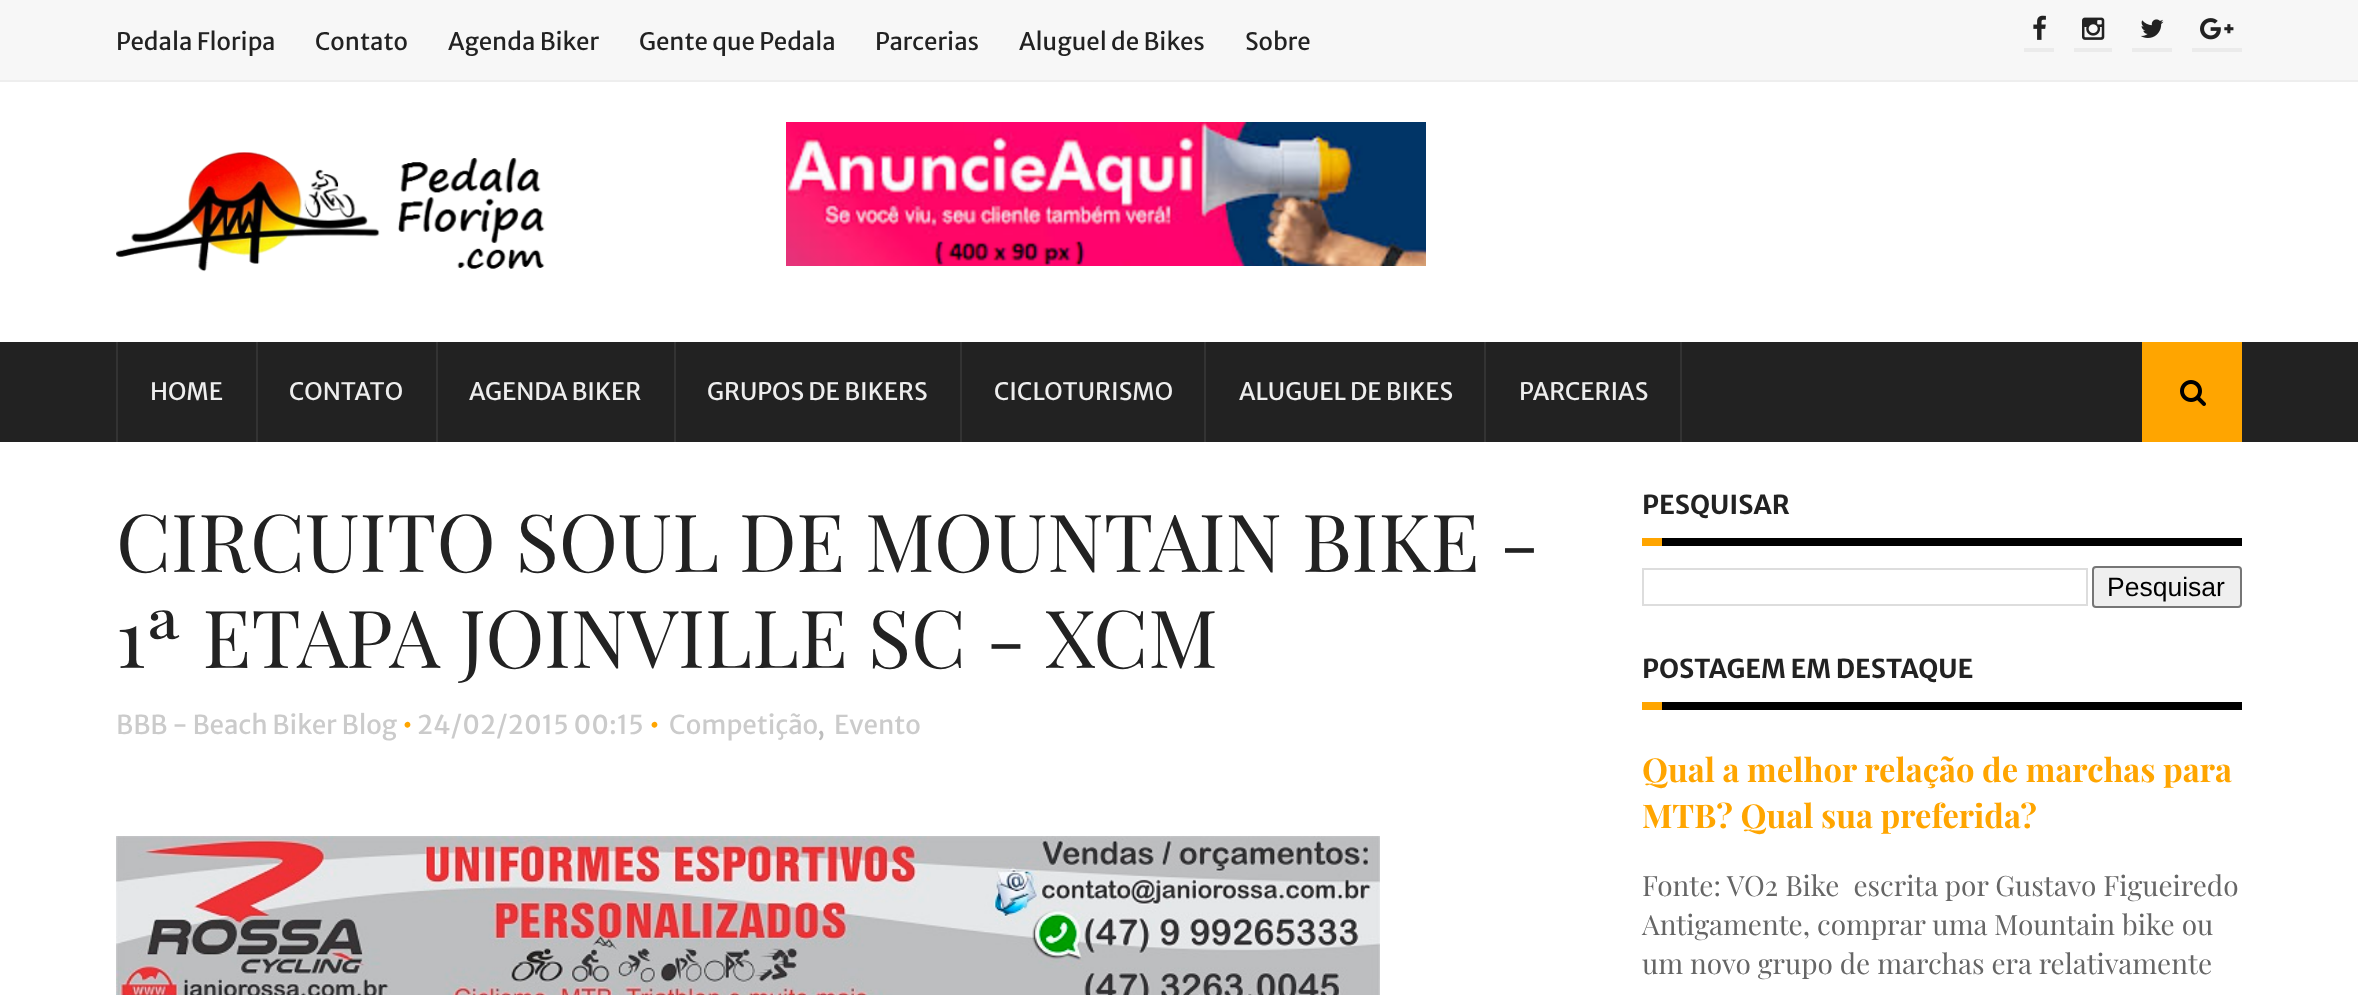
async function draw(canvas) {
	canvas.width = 2358;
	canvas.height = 995;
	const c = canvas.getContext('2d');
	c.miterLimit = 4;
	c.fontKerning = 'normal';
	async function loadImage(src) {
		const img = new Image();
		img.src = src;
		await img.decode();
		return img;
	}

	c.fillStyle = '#fff';
	c.fillRect(0, 0, 2358, 995);
	c.fillStyle = '#f7f7f7';
	c.fillRect(0, 0, 2358, 80);
	c.fillStyle = '#eee';
	c.fillRect(0, 80, 2358, 2);
	c.font = '24px Merriweather Sans';
	c.fillStyle = '#222';
	for (const [text, x, y] of [
		['Pedala Floripa', 116, 50],
		['Contato', 315, 50],
		['Agenda Biker', 448, 50],
		['Gente que Pedala', 639, 50],
		['Parcerias', 875, 50],
		['Aluguel de Bikes', 1019, 50],
		['Sobre', 1245, 50],
	]) {
		c.fillText(text, x, y);
	}
	c.fillStyle = '#ebebeb';
	c.fillRect(2024, 48, 30, 4);
	c.drawImage(await loadImage('img1.png'), 2033, 15, 13, 25);
	c.fillRect(2074, 48, 38, 4);
	c.drawImage(await loadImage('img2.png'), 2082, 17, 23, 23);
	c.fillRect(2132, 48, 40, 4);
	c.drawImage(await loadImage('img3.png'), 2140, 19, 24, 19);
	c.fillRect(2192, 48, 50, 4);
	c.drawImage(await loadImage('img4.png'), 2200, 18, 34, 22);
	c.drawImage(await loadImage('img5.png'), 116, 152, 429, 120);
	c.drawImage(await loadImage('img6.png'), 786, 122, 640, 144);
	for (const [x, y, w, h, color] of [
		[0, 342, 2358, 100, '#222'],
		[256, 342, 2, 100, '#333'],
		[116, 342, 2, 100, '#333'],
	]) {
		c.fillStyle = color;
		c.fillRect(x, y, w, h);
	}
	c.fillStyle = '#eee';
	c.fillText('HOME', 150, 400);
	c.fillStyle = '#333';
	c.fillRect(436, 342, 2, 100);
	c.fillStyle = '#eee';
	c.fillText('CONTATO', 289, 400);
	c.fillStyle = '#333';
	c.fillRect(674, 342, 2, 100);
	c.fillStyle = '#eee';
	c.fillText('AGENDA BIKER', 469, 400);
	c.fillStyle = '#333';
	c.fillRect(960, 342, 2, 100);
	c.fillStyle = '#eee';
	c.fillText('GRUPOS DE BIKERS', 707, 400);
	c.fillStyle = '#333';
	c.fillRect(1204, 342, 2, 100);
	c.fillStyle = '#eee';
	c.fillText('CICLOTURISMO', 994, 400);
	c.fillStyle = '#333';
	c.fillRect(1484, 342, 2, 100);
	c.fillStyle = '#eee';
	c.fillText('ALUGUEL DE BIKES', 1239, 400);
	c.fillStyle = '#333';
	c.fillRect(1680, 342, 2, 100);
	c.fillStyle = '#eee';
	c.fillText('PARCERIAS', 1519, 400);
	c.fillStyle = '#ffa500';
	c.fillRect(2142, 342, 100, 100);
	c.drawImage(await loadImage('img7.png'), 2180, 380, 26, 26);
	c.font = '80px Playfair Display';
	c.fillStyle = '#222';
	c.fillText('CIRCUITO SOUL DE MOUNTAIN BIKE -', 116, 572);
	c.fillText('1ª ETAPA JOINVILLE SC - XCM', 116, 668);
	c.font = '26px Merriweather Sans';
	c.fillStyle = '#cbcbcb';
	c.fillText('BBB - Beach Biker Blog', 116, 734);
	c.fillStyle = '#ffa500';
	c.fillText('•', 402, 734);
	c.fillStyle = '#cbcbcb';
	c.fillText('24/02/2015 00:15', 417, 734);
	c.fillStyle = '#ffa500';
	c.fillText('•', 649, 734);
	c.fillStyle = '#cbcbcb';
	c.fillText('Competição', 669, 734);
	c.fillText('Evento', 834, 734);
	c.fillStyle = '#bdbdbd';
	c.fillText(',', 817, 734);
	c.drawImage(await loadImage('img8.png'), 116, 836, 1264, 159);
	c.fillStyle = '#000';
	c.fillRect(1662, 538, 580, 8);
	c.font = 'bold 26px Merriweather Sans';
	c.fillStyle = '#222';
	c.fillText('PESQUISAR', 1642, 514);
	c.fillStyle = '#ffa500';
	c.fillRect(1642, 538, 20, 8);
	c.strokeStyle = '#ddd';
	c.lineWidth = 2;
	c.strokeRect(1643, 569, 444, 36);
	c.fillStyle = '#efefef';
	c.beginPath();
	c.roundRect(2093, 567, 148, 40, 3);
	c.fill();
	c.strokeStyle = '#767676';
	c.stroke();
	c.font = '26.5px Liberation Sans';
	c.fillStyle = '#000';
	c.fillText('Pesquisar', 2107, 596);
	c.fillRect(1662, 702, 580, 8);
	c.font = 'bold 26px Merriweather Sans';
	c.fillStyle = '#222';
	c.fillText('POSTAGEM EM DESTAQUE', 1642, 678);
	c.fillStyle = '#ffa500';
	c.fillRect(1642, 702, 20, 8);
	c.font = 'bold 32.75px Playfair Display';
	c.fillText('Qual a melhor relação de marchas para', 1642, 782);
	c.fillText('MTB? Qual sua preferida?', 1642, 828);
	c.font = '28px Playfair Display';
	c.fillStyle = '#666';
	for (const [text, x, y] of [
		['Fonte: VO2 Bike  escrita por Gustavo Figueiredo', 1642, 896],
		['Antigamente, comprar uma Mountain bike ou', 1642, 935],
		['um novo grupo de marchas era relativamente', 1642, 974],
	]) {
		c.fillText(text, x, y);
	}
}

draw(document.querySelector('canvas'));
